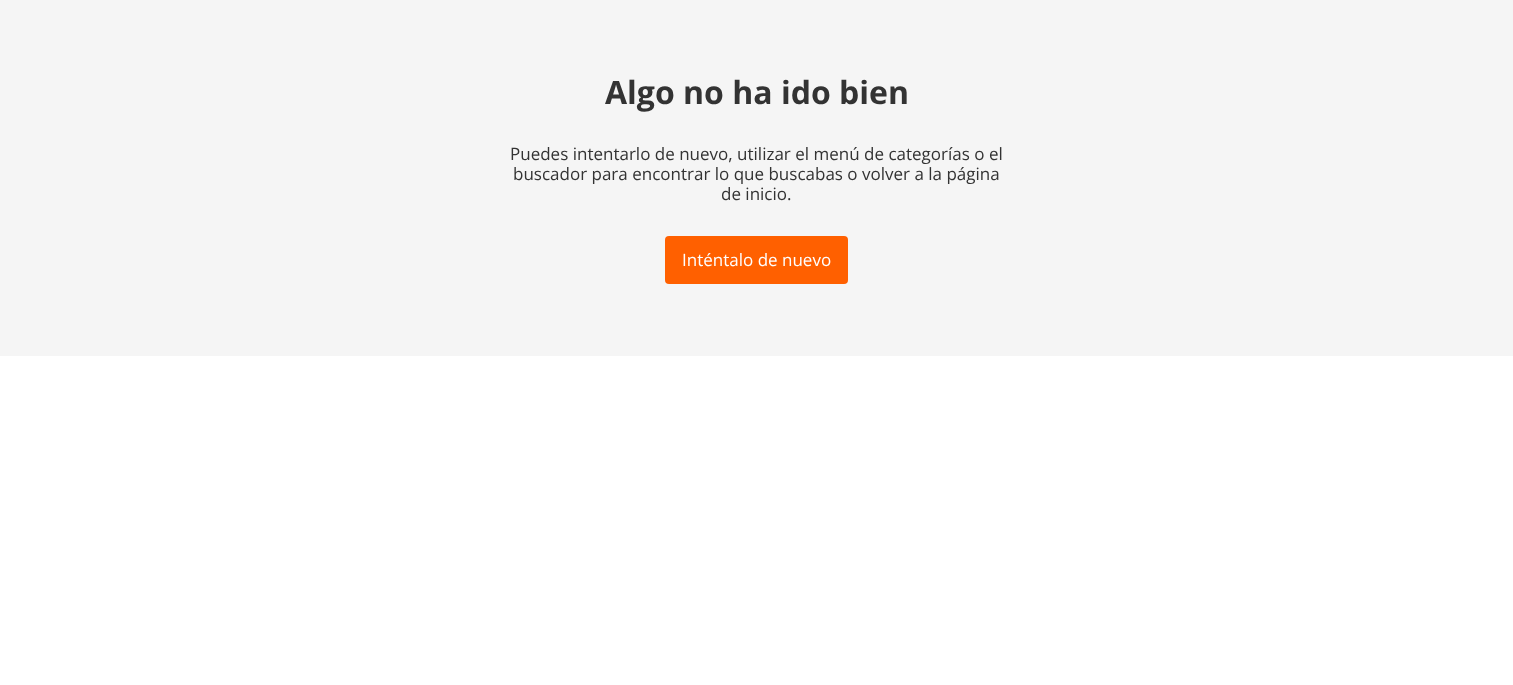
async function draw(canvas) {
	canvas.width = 1513;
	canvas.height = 685;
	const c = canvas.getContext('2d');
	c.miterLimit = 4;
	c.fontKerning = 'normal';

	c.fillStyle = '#fff';
	c.fillRect(0, 0, 1513, 685);
	c.fillStyle = '#f5f5f5';
	c.fillRect(0, 0, 1513, 356);
	c.font = 'bold 32px Open Sans';
	c.fillStyle = '#333';
	c.fillText('Algo no ha ido bien', 605, 104);
	c.font = '17px Open Sans';
	for (const [text, x, y] of [
		['Puedes intentarlo de nuevo, utilizar el menú de categorías o el', 510, 160],
		['buscador para encontrar lo que buscabas o volver a la página', 513, 180],
		['de inicio.', 721, 200],
	]) {
		c.fillText(text, x, y);
	}
	c.fillStyle = '#ff6000';
	c.beginPath();
	c.roundRect(665, 236, 183, 48, 4);
	c.fill();
	c.fillStyle = '#fff';
	c.fillText('Inténtalo de nuevo', 682, 266);
}

draw(document.querySelector('canvas'));
